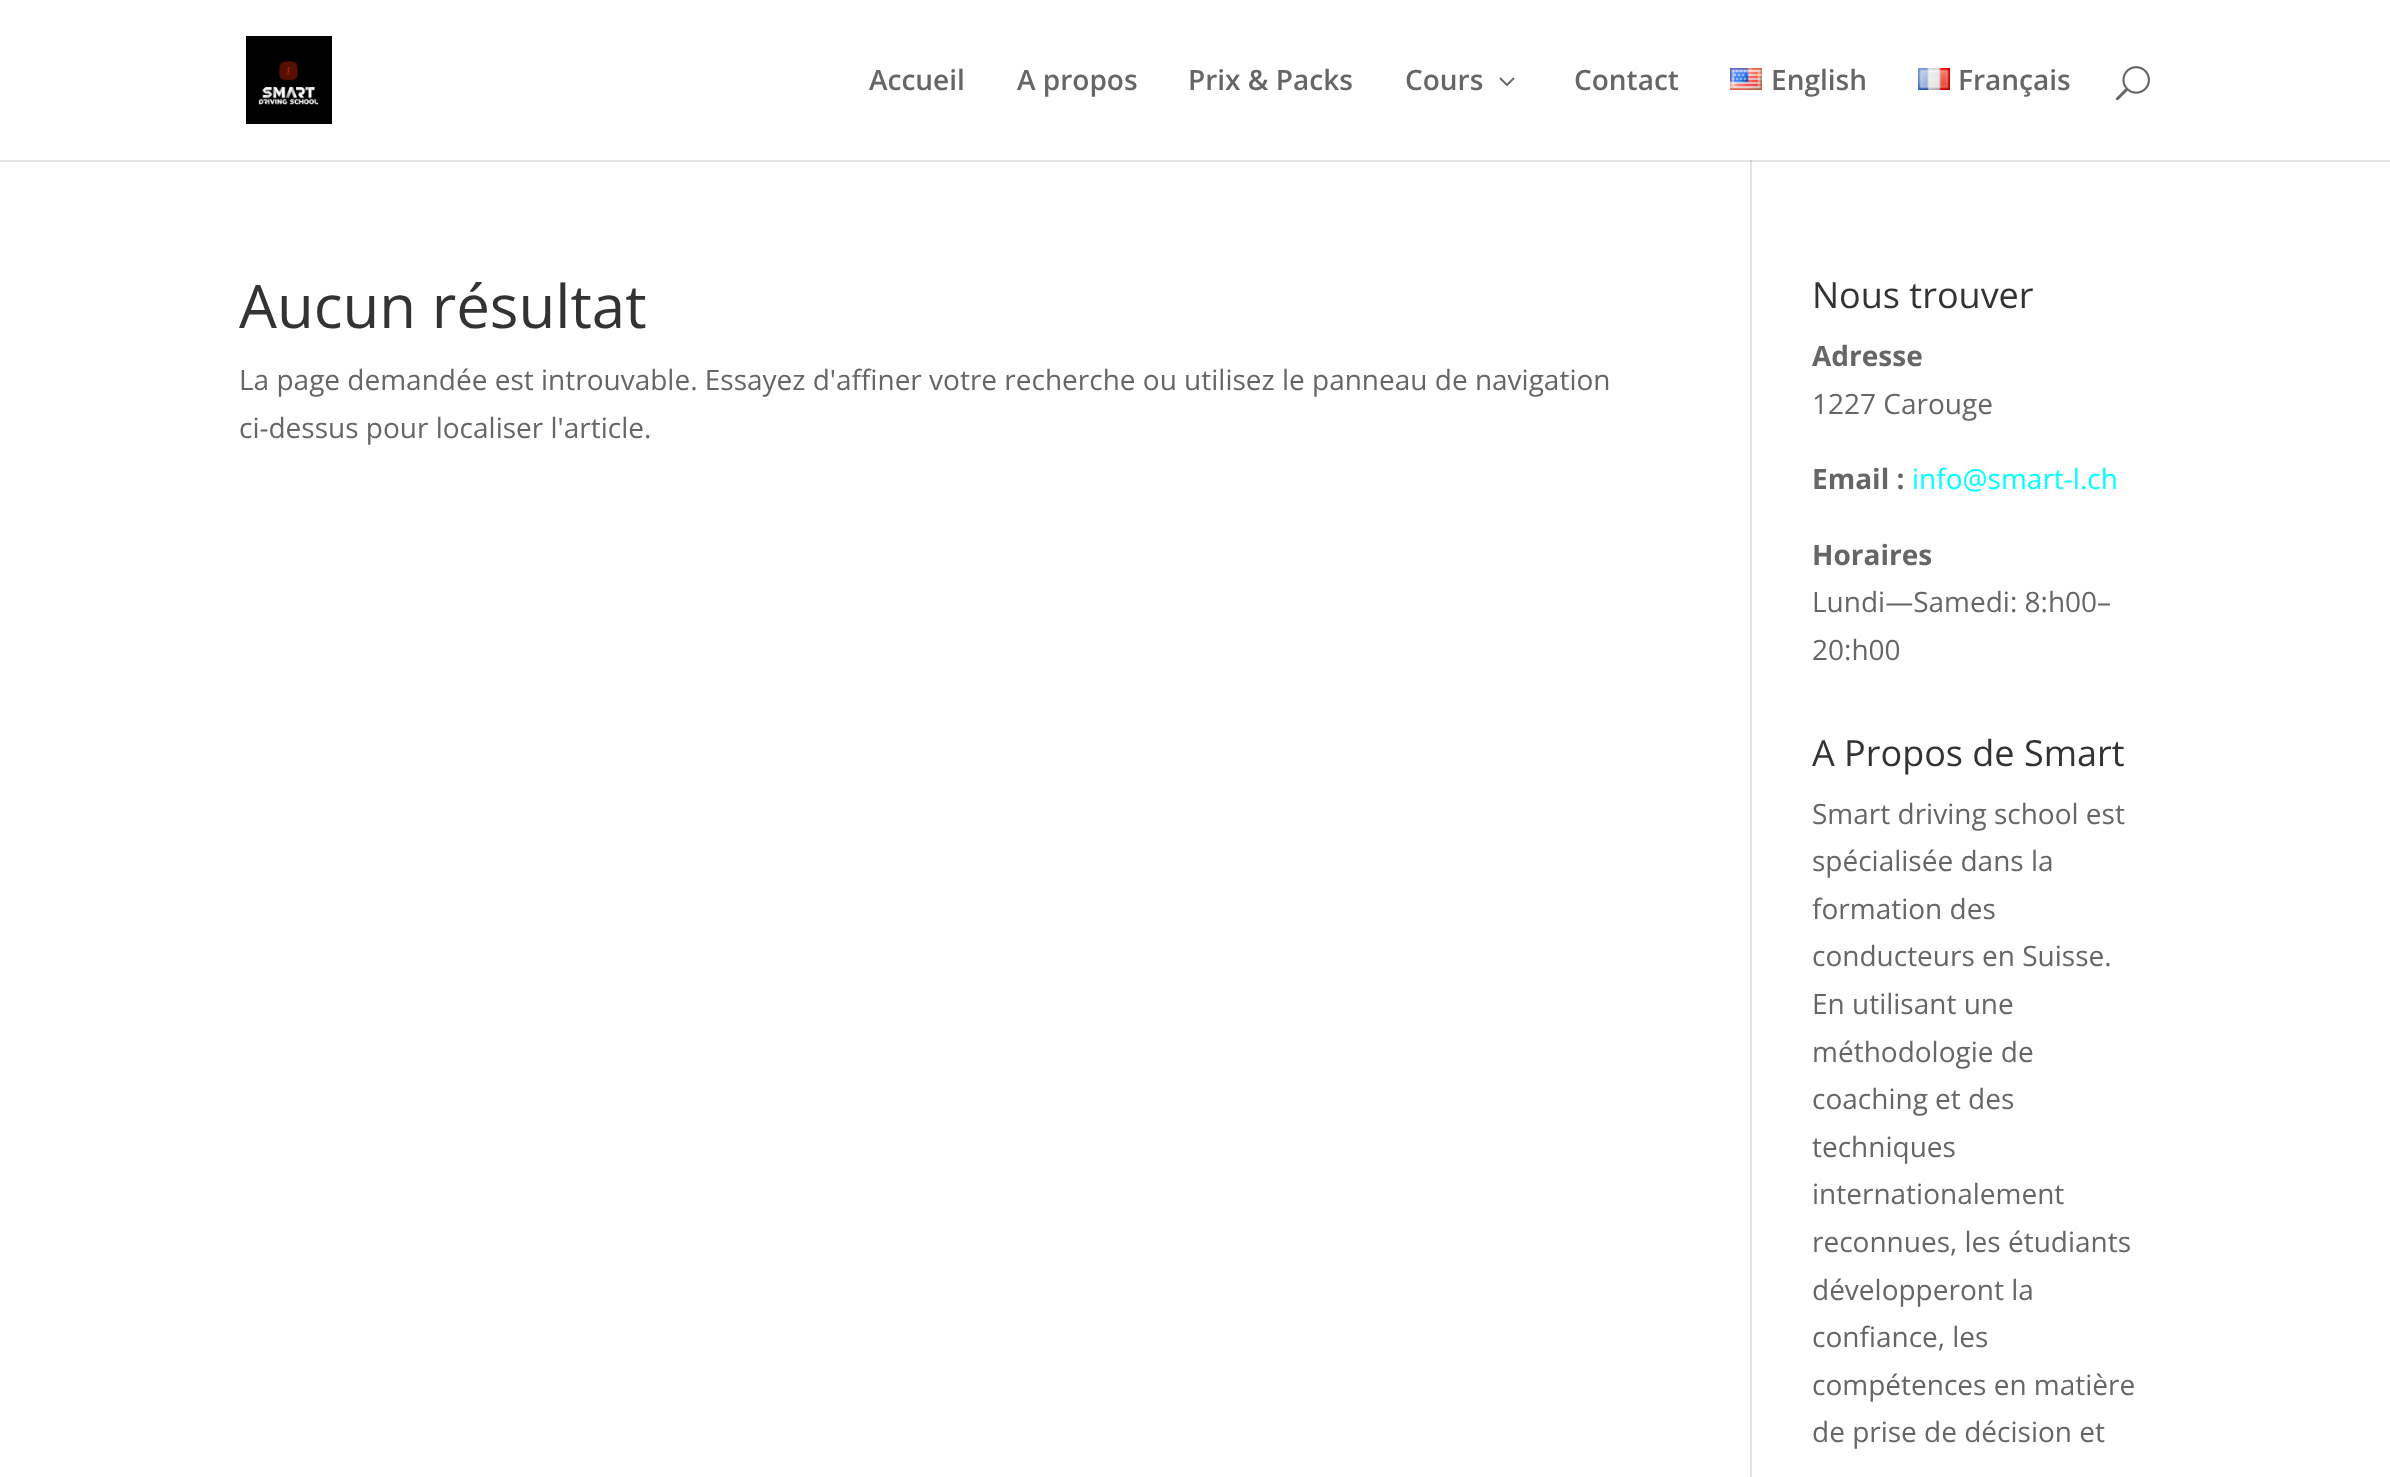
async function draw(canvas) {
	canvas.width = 2390;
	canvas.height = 1477;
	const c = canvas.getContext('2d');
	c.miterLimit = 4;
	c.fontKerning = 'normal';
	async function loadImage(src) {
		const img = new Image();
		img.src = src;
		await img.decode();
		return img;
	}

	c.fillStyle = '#fff';
	c.fillRect(0, 0, 2390, 1477);
	c.fillStyle = '#e6e6e6';
	c.fillRect(0, 160, 2390, 2);
	c.drawImage(await loadImage('img1.png'), 246, 36, 86, 88);
	c.font = '600 28px Open Sans';
	c.fillStyle = '#666';
	for (const [text, x, y] of [
		['Accueil', 869, 90],
		['A propos', 1017, 90],
		['Prix & Packs', 1188, 90],
		['Cours', 1405, 90],
	]) {
		c.fillText(text, x, y);
	}
	c.drawImage(await loadImage('img2.png'), 1499, 77, 16, 9);
	c.fillText('Contact', 1574, 90);
	c.drawImage(await loadImage('img3.png'), 1730, 68, 32, 22);
	c.fillText('English', 1771, 90);
	c.drawImage(await loadImage('img4.png'), 1918, 68, 32, 22);
	c.fillText('Français', 1958, 90);
	c.drawImage(await loadImage('img5.png'), 2115, 66, 35, 35);
	c.fillStyle = '#e2e2e2';
	c.fillRect(1750, 160, 2, 1317);
	c.fillStyle = '#cbcbcb';
	c.fillRect(1750, 160, 2, 2);
	c.font = '60px Open Sans';
	c.fillStyle = '#333';
	c.fillText('Aucun résultat', 239, 328);
	c.font = '28px Open Sans';
	c.fillStyle = '#666';
	c.fillText('La page demandée est introuvable. Essayez d\'affiner votre recherche ou utilisez le panneau de navigation', 239, 390);
	c.fillText('ci-dessus pour localiser l\'article.', 239, 438);
	c.font = '36px Open Sans';
	c.fillStyle = '#333';
	c.fillText('Nous trouver', 1812, 308);
	c.font = 'bold 28px Open Sans';
	c.fillStyle = '#666';
	c.fillText('Adresse', 1812, 366);
	c.font = '28px Open Sans';
	c.fillText('1227 Carouge', 1812, 414);
	c.font = 'bold 28px Open Sans';
	c.fillText('Email :', 1812, 489);
	c.font = '28px Open Sans';
	c.fillStyle = '#0ff';
	c.fillText('info@smart-l.ch', 1912, 489);
	c.font = 'bold 28px Open Sans';
	c.fillStyle = '#666';
	c.fillText('Horaires', 1812, 565);
	c.font = '28px Open Sans';
	c.fillText('Lundi—Samedi: 8:h00–', 1812, 612);
	c.fillText('20:h00', 1812, 660);
	c.font = '36px Open Sans';
	c.fillStyle = '#333';
	c.fillText('A Propos de Smart', 1812, 766);
	c.font = '28px Open Sans';
	c.fillStyle = '#666';
	for (const [text, x, y] of [
		['Smart driving school est', 1812, 824],
		['spécialisée dans la', 1812, 871],
		['formation des', 1812, 919],
		['conducteurs en Suisse.', 1812, 966],
		['En utilisant une', 1812, 1014],
		['méthodologie de', 1812, 1062],
		['coaching et des', 1812, 1109],
		['techniques', 1812, 1157],
		['internationalement', 1812, 1204],
		['reconnues, les étudiants', 1812, 1252],
		['développeront la', 1812, 1300],
		['confiance, les', 1812, 1347],
		['compétences en matière', 1812, 1395],
		['de prise de décision et', 1812, 1442],
	]) {
		c.fillText(text, x, y);
	}
}

draw(document.querySelector('canvas'));
